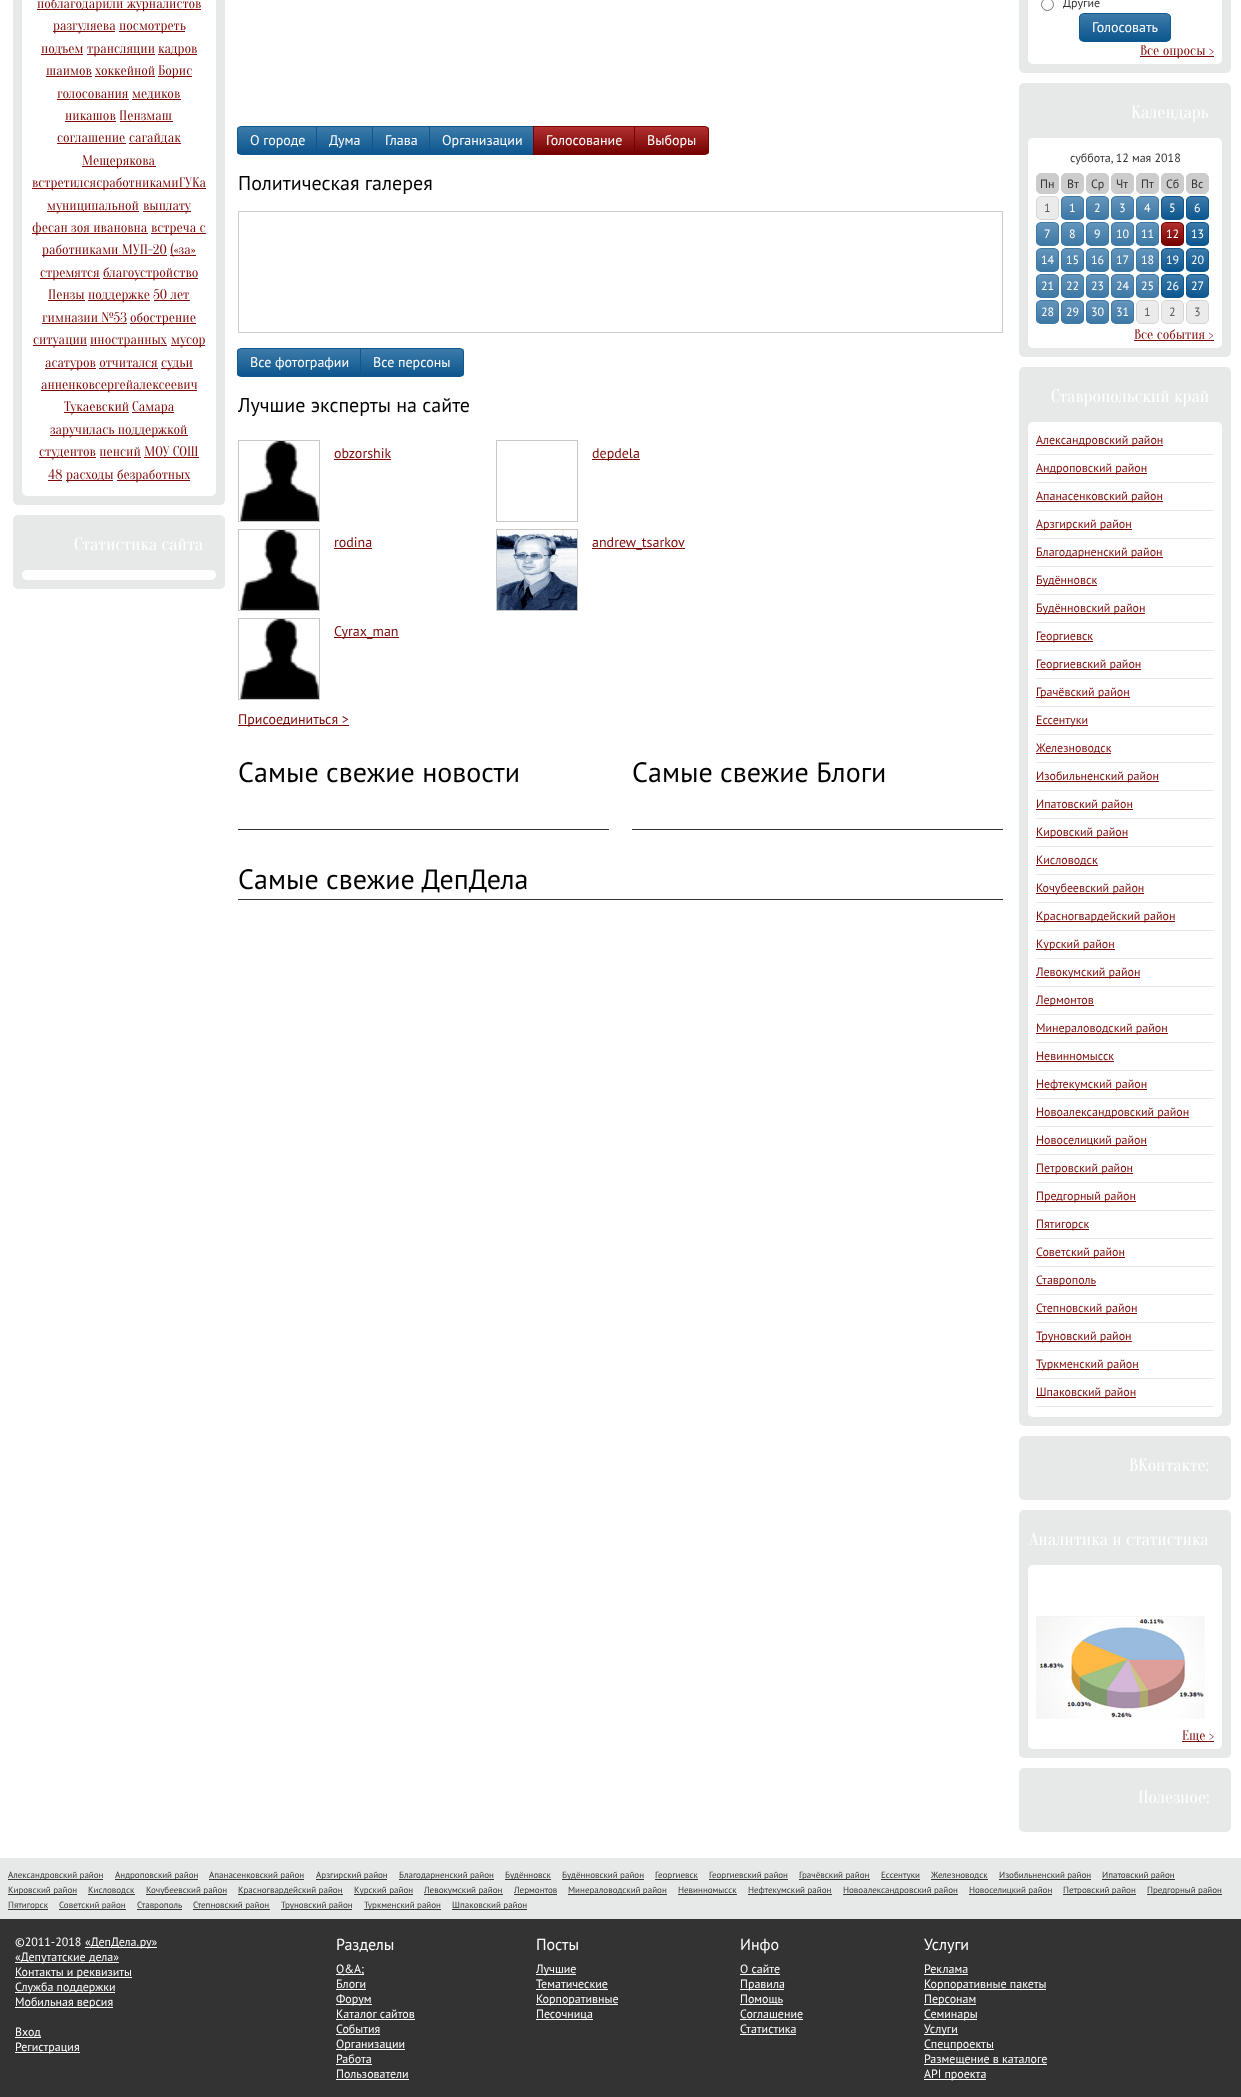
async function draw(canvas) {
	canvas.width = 1241;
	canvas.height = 2097;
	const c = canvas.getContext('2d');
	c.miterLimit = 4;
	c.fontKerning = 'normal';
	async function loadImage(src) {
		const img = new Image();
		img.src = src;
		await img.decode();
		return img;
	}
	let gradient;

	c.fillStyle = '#fff';
	c.fillRect(0, 0, 1241, 2097);
	c.fillStyle = '#e7e9e9';
	c.beginPath();
	c.roundRect(13, -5, 212, 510, 5);
	c.fill();
	c.fillStyle = '#fff';
	c.beginPath();
	c.roundRect(22, -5, 194, 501, 5);
	c.fill();
	c.fillStyle = '#7e0b0a';
	c.fillRect(37, 9, 164, 1);
	c.font = '14px Oranienbaum';
	c.fillText('поблагодарили журналистов', 37, 8);
	c.fillRect(53, 31, 62, 1);
	c.fillText('разгуляева', 53, 30);
	c.fillRect(119, 31, 66, 1);
	c.fillText('посмотреть', 119, 30);
	c.fillRect(41, 54, 42, 1);
	c.fillText('подъем', 41, 53);
	c.fillRect(87, 54, 68, 1);
	c.fillText('трансляции', 87, 53);
	c.fillRect(158, 54, 39, 1);
	c.fillText('кадров', 158, 53);
	c.fillText('шаимов хоккейной', 46, 75);
	c.fillRect(46, 76, 46, 1);
	c.fillRect(158, 76, 34, 1);
	c.fillText('Борис', 158, 75);
	c.fillRect(95, 76, 60, 1);
	c.fillText('голосования', 57, 98);
	c.fillRect(57, 99, 72, 1);
	c.fillRect(132, 99, 49, 1);
	c.fillText('медиков', 132, 98);
	c.fillText('никашов Пензмаш', 65, 120);
	c.fillRect(65, 121, 51, 1);
	c.fillRect(120, 121, 53, 1);
	c.fillText('соглашение', 57, 142);
	c.fillRect(57, 143, 69, 1);
	c.fillRect(129, 143, 52, 1);
	c.fillText('сагайдак', 129, 142);
	c.fillRect(82, 166, 74, 1);
	c.fillText('Мещерякова', 82, 165);
	c.fillRect(32, 188, 174, 1);
	c.fillText('встретилсясработникамиГУКа', 32, 187);
	c.fillRect(47, 211, 92, 1);
	c.fillText('муниципальной', 47, 210);
	c.fillRect(143, 211, 48, 1);
	c.fillText('выплату', 143, 210);
	c.fillRect(32, 233, 116, 1);
	c.fillText('фесан зоя ивановна', 32, 232);
	c.fillRect(151, 233, 55, 1);
	c.fillText('встреча с', 151, 232);
	c.fillRect(42, 255, 125, 1);
	c.fillText('работниками МУП-20', 42, 254);
	c.fillRect(170, 255, 26, 1);
	c.fillText('(«за»', 170, 254);
	c.fillRect(40, 278, 60, 1);
	c.fillText('стремятся', 40, 277);
	c.fillRect(103, 278, 95, 1);
	c.fillText('благоустройство', 103, 277);
	c.fillText('Пензы', 48, 299);
	c.fillRect(48, 300, 37, 1);
	c.fillRect(88, 300, 62, 1);
	c.fillText('поддержке 50 лет', 88, 299);
	c.fillText('гимназии №53', 42, 322);
	for (const [x, y, w, h, color] of [
		[154, 300, 36, 1, '#7e0b0a'],
		[42, 323, 85, 1, '#7e0b0a'],
		[130, 323, 66, 1, '#7e0b0a'],
	]) {
		c.fillStyle = color;
		c.fillRect(x, y, w, h);
	}
	c.fillText('обострение', 130, 322);
	c.fillRect(33, 345, 54, 1);
	c.fillText('ситуации', 33, 344);
	c.fillRect(90, 345, 77, 1);
	c.fillText('иностранных', 90, 344);
	c.fillRect(171, 345, 34, 1);
	c.fillText('мусор', 171, 344);
	c.fillRect(45, 368, 51, 1);
	c.fillText('асатуров отчитался', 45, 367);
	c.fillRect(161, 368, 32, 1);
	c.fillText('судьи', 161, 367);
	c.fillRect(99, 368, 59, 1);
	c.fillRect(41, 390, 156, 1);
	c.fillText('анненковсергейалексеевич', 41, 389);
	c.fillRect(64, 412, 65, 1);
	c.fillText('Тукаевский', 64, 411);
	c.fillRect(132, 412, 42, 1);
	c.fillText('Самара', 132, 411);
	c.fillRect(50, 435, 138, 1);
	c.fillText('заручилась поддержкой', 50, 434);
	c.fillRect(39, 457, 57, 1);
	c.fillText('студентов пенсий МОУ СОШ', 39, 456);
	c.fillRect(100, 457, 41, 1);
	c.fillText('48', 48, 479);
	for (const [x, y, w, h, color] of [
		[144, 457, 55, 1, '#7e0b0a'],
		[48, 480, 14, 1, '#7e0b0a'],
		[66, 480, 47, 1, '#7e0b0a'],
	]) {
		c.fillStyle = color;
		c.fillRect(x, y, w, h);
	}
	c.fillText('расходы', 66, 479);
	c.fillRect(117, 480, 73, 1);
	c.fillText('безработных', 117, 479);
	c.fillStyle = '#e7e9e9';
	c.beginPath();
	c.roundRect(13, 515, 212, 74, 5);
	c.fill();
	c.fillStyle = '#fff';
	c.beginPath();
	c.roundRect(22, 570, 194, 10, 5);
	c.fill();
	c.font = '18px Oranienbaum';
	c.fillText('Статистика сайта', 74, 550);
	c.save();
	c.beginPath();
	c.roundRect(237, 126, 81, 29, [4, 0, 0, 4]);
	c.clip();
	gradient = c.createLinearGradient(278, 127, 278, 154);
	gradient.addColorStop(0, '#3d7baa');
	gradient.addColorStop(1, '#0c568e');
	c.fillStyle = gradient;
	c.fillRect(237, 127, 79, 27);
	c.restore();
	c.beginPath();
	c.roundRect(237.5, 126.5, 80, 28, [3.5, 0, 0, 3.5]);
	c.strokeStyle = '#0e588f';
	c.stroke();
	c.font = '14px PT Sans';
	c.fillText('О городе', 250, 145);
	gradient = c.createLinearGradient(345, 127, 345, 154);
	gradient.addColorStop(0, '#3d7baa');
	gradient.addColorStop(1, '#0c568e');
	c.fillStyle = gradient;
	c.fillRect(317, 127, 55, 27);
	c.strokeRect(316.5, 126.5, 57, 28);
	c.fillStyle = '#fff';
	c.fillText('Дума', 329, 145);
	gradient = c.createLinearGradient(402, 127, 402, 154);
	gradient.addColorStop(0, '#3d7baa');
	gradient.addColorStop(1, '#0c568e');
	c.fillStyle = gradient;
	c.fillRect(373, 127, 56, 27);
	c.strokeRect(372.5, 126.5, 58, 28);
	c.fillStyle = '#fff';
	c.fillText('Глава', 385, 145);
	gradient = c.createLinearGradient(482, 127, 482, 154);
	gradient.addColorStop(0, '#3d7baa');
	gradient.addColorStop(1, '#0c568e');
	c.fillStyle = gradient;
	c.fillRect(430, 127, 103, 27);
	c.strokeRect(429.5, 126.5, 105, 28);
	c.fillStyle = '#fff';
	c.fillText('Организации', 442, 145);
	gradient = c.createLinearGradient(585, 127, 585, 154);
	gradient.addColorStop(0, '#b23030');
	gradient.addColorStop(1, '#730100');
	c.fillStyle = gradient;
	c.fillRect(534, 127, 100, 27);
	c.strokeStyle = '#790000';
	c.strokeRect(533.5, 126.5, 102, 28);
	c.fillStyle = '#fff';
	c.fillText('Голосование', 546, 145);
	c.save();
	c.beginPath();
	c.roundRect(634, 126, 75, 29, [0, 4, 4, 0]);
	c.clip();
	gradient = c.createLinearGradient(672, 127, 672, 154);
	gradient.addColorStop(0, '#b23030');
	gradient.addColorStop(1, '#730100');
	c.fillStyle = gradient;
	c.fillRect(635, 127, 74, 27);
	c.restore();
	c.beginPath();
	c.roundRect(634.5, 126.5, 74, 28, [0, 3.5, 3.5, 0]);
	c.stroke();
	c.fillText('Выборы', 647, 145);
	c.font = '20px PT Sans';
	c.fillStyle = '#000';
	c.fillText('Политическая галерея', 238, 190);
	c.strokeStyle = '#ccc';
	c.strokeRect(238.5, 211.5, 764, 121);
	c.save();
	c.beginPath();
	c.roundRect(237, 348, 125, 29, [4, 0, 0, 4]);
	c.clip();
	gradient = c.createLinearGradient(300, 349, 300, 376);
	gradient.addColorStop(0, '#3d7baa');
	gradient.addColorStop(1, '#0c568e');
	c.fillStyle = gradient;
	c.fillRect(237, 349, 123, 27);
	c.restore();
	c.beginPath();
	c.roundRect(237.5, 348.5, 124, 28, [3.5, 0, 0, 3.5]);
	c.strokeStyle = '#0e588f';
	c.stroke();
	c.font = '14px PT Sans';
	c.fillStyle = '#fff';
	c.fillText('Все фотографии', 250, 367);
	c.save();
	c.beginPath();
	c.roundRect(360, 348, 104, 29, [0, 4, 4, 0]);
	c.clip();
	gradient = c.createLinearGradient(412, 349, 412, 376);
	gradient.addColorStop(0, '#3d7baa');
	gradient.addColorStop(1, '#0c568e');
	c.fillStyle = gradient;
	c.fillRect(361, 349, 103, 27);
	c.restore();
	c.beginPath();
	c.roundRect(360.5, 348.5, 103, 28, [0, 3.5, 3.5, 0]);
	c.stroke();
	c.fillText('Все персоны', 373, 367);
	c.font = '20px PT Sans';
	c.fillStyle = '#000';
	c.fillText('Лучшие эксперты на сайте', 238, 412);
	c.strokeStyle = '#c7c7c7';
	c.strokeRect(238.5, 440.5, 81, 81);
	c.drawImage(await loadImage('img1.png'), 240, 441, 79, 80);
	c.font = '14px PT Sans';
	c.fillStyle = '#7e0b0a';
	c.fillText('obzorshik', 334, 458);
	c.fillRect(334, 459, 57, 1);
	c.strokeRect(496.5, 440.5, 81, 81);
	c.fillRect(592, 459, 48, 1);
	c.fillText('depdela', 592, 458);
	c.strokeRect(238.5, 529.5, 81, 81);
	c.drawImage(await loadImage('img1.png'), 240, 530, 79, 80);
	c.fillText('rodina', 334, 547);
	c.fillRect(334, 548, 38, 1);
	c.strokeRect(496.5, 529.5, 81, 81);
	c.drawImage(await loadImage('img2.png'), 497, 530, 80, 80);
	c.fillRect(592, 548, 93, 1);
	c.fillText('andrew_tsarkov', 592, 547);
	c.strokeRect(238.5, 618.5, 81, 81);
	c.drawImage(await loadImage('img1.png'), 240, 619, 79, 80);
	c.fillRect(334, 637, 65, 1);
	c.fillText('Cyrax_man', 334, 636);
	c.fillRect(238, 725, 111, 1);
	c.fillText('Присоединиться >', 238, 724);
	c.fillStyle = '#333';
	c.fillRect(238, 829, 371, 1);
	c.font = '28px PT Sans';
	c.fillStyle = '#000';
	c.fillText('Самые свежие новости', 238, 782);
	c.fillStyle = '#333';
	c.fillRect(632, 829, 371, 1);
	c.fillStyle = '#000';
	c.fillText('Самые свежие Блоги', 632, 782);
	c.fillStyle = '#333';
	c.fillRect(238, 899, 765, 1);
	c.fillStyle = '#000';
	c.fillText('Самые свежие ДепДела', 238, 889);
	c.fillStyle = '#e7e9e9';
	c.beginPath();
	c.roundRect(1019, -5, 212, 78, 5);
	c.fill();
	c.fillStyle = '#fff';
	c.beginPath();
	c.roundRect(1028, -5, 194, 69, 5);
	c.fill();
	c.beginPath();
	c.arc(1047.5, 4.5, 6, 0, 2 * Math.PI);
	c.strokeStyle = '#767676';
	c.stroke();
	c.font = '12px PT Sans';
	c.fillStyle = '#333';
	c.fillText('Другие', 1063, 7);
	c.save();
	c.beginPath();
	c.roundRect(1079, 13, 92, 29, 5);
	c.clip();
	gradient = c.createLinearGradient(1125, 14, 1125, 41);
	gradient.addColorStop(0, '#3d7baa');
	gradient.addColorStop(1, '#0c568e');
	c.fillStyle = gradient;
	c.fillRect(1079, 14, 92, 27);
	c.restore();
	c.beginPath();
	c.roundRect(1079.5, 13.5, 91, 28, 4.5);
	c.strokeStyle = '#0e588f';
	c.stroke();
	c.font = '14px PT Sans';
	c.fillStyle = '#fff';
	c.fillText('Голосовать', 1092, 32);
	c.fillStyle = '#7e0b0a';
	c.fillRect(1140, 56, 74, 1);
	c.font = '14px Oranienbaum';
	c.fillText('Все опросы >', 1140, 55);
	c.fillStyle = '#e7e9e9';
	c.beginPath();
	c.roundRect(1019, 83, 212, 274, 5);
	c.fill();
	c.font = '18px Oranienbaum';
	c.fillStyle = '#fff';
	c.fillText('Календарь', 1131, 118);
	c.beginPath();
	c.roundRect(1028, 138, 194, 210, 5);
	c.fill();
	c.font = '12px PT Sans';
	c.fillStyle = '#333';
	c.fillText('суббота, 12 мая 2018', 1070, 162);
	c.fillStyle = '#ccc';
	c.beginPath();
	c.roundRect(1036.5, 173.5, 22, 20, 4.5);
	c.fill();
	c.strokeStyle = '#ccc';
	c.stroke();
	c.fillStyle = '#333';
	c.fillText('Пн', 1040, 188);
	c.fillStyle = '#ccc';
	c.beginPath();
	c.roundRect(1061.5, 173.5, 22, 20, 4.5);
	c.fill();
	c.stroke();
	c.fillStyle = '#333';
	c.fillText('Вт', 1067, 188);
	c.fillStyle = '#ccc';
	c.beginPath();
	c.roundRect(1086.5, 173.5, 22, 20, 4.5);
	c.fill();
	c.stroke();
	c.fillStyle = '#333';
	c.fillText('Ср', 1091, 188);
	c.fillStyle = '#ccc';
	c.beginPath();
	c.roundRect(1111.5, 173.5, 22, 20, 4.5);
	c.fill();
	c.stroke();
	c.fillStyle = '#333';
	c.fillText('Чт', 1116, 188);
	c.fillStyle = '#ccc';
	c.beginPath();
	c.roundRect(1136.5, 173.5, 22, 20, 4.5);
	c.fill();
	c.stroke();
	c.fillStyle = '#333';
	c.fillText('Пт', 1141, 188);
	c.fillStyle = '#ccc';
	c.beginPath();
	c.roundRect(1161.5, 173.5, 22, 20, 4.5);
	c.fill();
	c.stroke();
	c.fillStyle = '#333';
	c.fillText('Сб', 1166, 188);
	c.fillStyle = '#ccc';
	c.beginPath();
	c.roundRect(1186.5, 173.5, 22, 20, 4.5);
	c.fill();
	c.stroke();
	c.fillStyle = '#333';
	c.fillText('Вс', 1191, 188);
	c.fillStyle = '#ebebeb';
	c.beginPath();
	c.roundRect(1036.5, 196.5, 22, 23, 4.5);
	c.fill();
	c.strokeStyle = '#d6d6d6';
	c.stroke();
	c.fillStyle = '#5c5c5c';
	c.fillText('1', 1044, 212);
	c.save();
	c.beginPath();
	c.roundRect(1061, 196, 23, 24, 5);
	c.clip();
	gradient = c.createLinearGradient(1073, 197, 1073, 219);
	gradient.addColorStop(0, '#6495bb');
	gradient.addColorStop(1, '#3d78a5');
	c.fillStyle = gradient;
	c.fillRect(1061, 197, 23, 22);
	c.restore();
	c.beginPath();
	c.roundRect(1061.5, 196.5, 22, 23, 4.5);
	c.strokeStyle = '#3e79a5';
	c.stroke();
	c.fillStyle = '#fff';
	c.fillText('1', 1069, 212);
	c.save();
	c.beginPath();
	c.roundRect(1086, 196, 23, 24, 5);
	c.clip();
	gradient = c.createLinearGradient(1098, 197, 1098, 219);
	gradient.addColorStop(0, '#6495bb');
	gradient.addColorStop(1, '#3d78a5');
	c.fillStyle = gradient;
	c.fillRect(1086, 197, 23, 22);
	c.restore();
	c.beginPath();
	c.roundRect(1086.5, 196.5, 22, 23, 4.5);
	c.stroke();
	c.fillText('2', 1094, 212);
	c.save();
	c.beginPath();
	c.roundRect(1111, 196, 23, 24, 5);
	c.clip();
	gradient = c.createLinearGradient(1123, 197, 1123, 219);
	gradient.addColorStop(0, '#6495bb');
	gradient.addColorStop(1, '#3d78a5');
	c.fillStyle = gradient;
	c.fillRect(1111, 197, 23, 22);
	c.restore();
	c.beginPath();
	c.roundRect(1111.5, 196.5, 22, 23, 4.5);
	c.stroke();
	c.fillText('3', 1119, 212);
	c.save();
	c.beginPath();
	c.roundRect(1136, 196, 23, 24, 5);
	c.clip();
	gradient = c.createLinearGradient(1148, 197, 1148, 219);
	gradient.addColorStop(0, '#6495bb');
	gradient.addColorStop(1, '#3d78a5');
	c.fillStyle = gradient;
	c.fillRect(1136, 197, 23, 22);
	c.restore();
	c.beginPath();
	c.roundRect(1136.5, 196.5, 22, 23, 4.5);
	c.stroke();
	c.fillText('4', 1144, 212);
	c.save();
	c.beginPath();
	c.roundRect(1161, 196, 23, 24, 5);
	c.clip();
	gradient = c.createLinearGradient(1173, 197, 1173, 219);
	gradient.addColorStop(0, '#3d7baa');
	gradient.addColorStop(1, '#0c568e');
	c.fillStyle = gradient;
	c.fillRect(1161, 197, 23, 22);
	c.restore();
	c.beginPath();
	c.roundRect(1161.5, 196.5, 22, 23, 4.5);
	c.strokeStyle = '#0e588f';
	c.stroke();
	c.fillText('5', 1169, 212);
	c.save();
	c.beginPath();
	c.roundRect(1186, 196, 23, 24, 5);
	c.clip();
	gradient = c.createLinearGradient(1198, 197, 1198, 219);
	gradient.addColorStop(0, '#3d7baa');
	gradient.addColorStop(1, '#0c568e');
	c.fillStyle = gradient;
	c.fillRect(1186, 197, 23, 22);
	c.restore();
	c.beginPath();
	c.roundRect(1186.5, 196.5, 22, 23, 4.5);
	c.stroke();
	c.fillText('6', 1194, 212);
	c.save();
	c.beginPath();
	c.roundRect(1036, 222, 23, 24, 5);
	c.clip();
	gradient = c.createLinearGradient(1048, 223, 1048, 245);
	gradient.addColorStop(0, '#6495bb');
	gradient.addColorStop(1, '#3d78a5');
	c.fillStyle = gradient;
	c.fillRect(1036, 223, 23, 22);
	c.restore();
	c.beginPath();
	c.roundRect(1036.5, 222.5, 22, 23, 4.5);
	c.strokeStyle = '#3e79a5';
	c.stroke();
	c.fillText('7', 1044, 238);
	c.save();
	c.beginPath();
	c.roundRect(1061, 222, 23, 24, 5);
	c.clip();
	gradient = c.createLinearGradient(1073, 223, 1073, 245);
	gradient.addColorStop(0, '#6495bb');
	gradient.addColorStop(1, '#3d78a5');
	c.fillStyle = gradient;
	c.fillRect(1061, 223, 23, 22);
	c.restore();
	c.beginPath();
	c.roundRect(1061.5, 222.5, 22, 23, 4.5);
	c.stroke();
	c.fillText('8', 1069, 238);
	c.save();
	c.beginPath();
	c.roundRect(1086, 222, 23, 24, 5);
	c.clip();
	gradient = c.createLinearGradient(1098, 223, 1098, 245);
	gradient.addColorStop(0, '#6495bb');
	gradient.addColorStop(1, '#3d78a5');
	c.fillStyle = gradient;
	c.fillRect(1086, 223, 23, 22);
	c.restore();
	c.beginPath();
	c.roundRect(1086.5, 222.5, 22, 23, 4.5);
	c.stroke();
	c.fillText('9', 1094, 238);
	c.save();
	c.beginPath();
	c.roundRect(1111, 222, 23, 24, 5);
	c.clip();
	gradient = c.createLinearGradient(1123, 223, 1123, 245);
	gradient.addColorStop(0, '#6495bb');
	gradient.addColorStop(1, '#3d78a5');
	c.fillStyle = gradient;
	c.fillRect(1111, 223, 23, 22);
	c.restore();
	c.beginPath();
	c.roundRect(1111.5, 222.5, 22, 23, 4.5);
	c.stroke();
	c.fillText('10', 1116, 238);
	c.save();
	c.beginPath();
	c.roundRect(1136, 222, 23, 24, 5);
	c.clip();
	gradient = c.createLinearGradient(1148, 223, 1148, 245);
	gradient.addColorStop(0, '#6495bb');
	gradient.addColorStop(1, '#3d78a5');
	c.fillStyle = gradient;
	c.fillRect(1136, 223, 23, 22);
	c.restore();
	c.beginPath();
	c.roundRect(1136.5, 222.5, 22, 23, 4.5);
	c.stroke();
	c.fillText('11', 1141, 238);
	c.save();
	c.beginPath();
	c.roundRect(1161, 222, 23, 24, 5);
	c.clip();
	gradient = c.createLinearGradient(1173, 223, 1173, 245);
	gradient.addColorStop(0, '#b23030');
	gradient.addColorStop(1, '#730100');
	c.fillStyle = gradient;
	c.fillRect(1161, 223, 23, 22);
	c.restore();
	c.beginPath();
	c.roundRect(1161.5, 222.5, 22, 23, 4.5);
	c.strokeStyle = '#790000';
	c.stroke();
	c.fillText('12', 1166, 238);
	c.save();
	c.beginPath();
	c.roundRect(1186, 222, 23, 24, 5);
	c.clip();
	gradient = c.createLinearGradient(1198, 223, 1198, 245);
	gradient.addColorStop(0, '#3d7baa');
	gradient.addColorStop(1, '#0c568e');
	c.fillStyle = gradient;
	c.fillRect(1186, 223, 23, 22);
	c.restore();
	c.beginPath();
	c.roundRect(1186.5, 222.5, 22, 23, 4.5);
	c.strokeStyle = '#0e588f';
	c.stroke();
	c.fillText('13', 1191, 238);
	c.save();
	c.beginPath();
	c.roundRect(1036, 248, 23, 24, 5);
	c.clip();
	gradient = c.createLinearGradient(1048, 249, 1048, 271);
	gradient.addColorStop(0, '#6495bb');
	gradient.addColorStop(1, '#3d78a5');
	c.fillStyle = gradient;
	c.fillRect(1036, 249, 23, 22);
	c.restore();
	c.beginPath();
	c.roundRect(1036.5, 248.5, 22, 23, 4.5);
	c.strokeStyle = '#3e79a5';
	c.stroke();
	c.fillText('14', 1041, 264);
	c.save();
	c.beginPath();
	c.roundRect(1061, 248, 23, 24, 5);
	c.clip();
	gradient = c.createLinearGradient(1073, 249, 1073, 271);
	gradient.addColorStop(0, '#6495bb');
	gradient.addColorStop(1, '#3d78a5');
	c.fillStyle = gradient;
	c.fillRect(1061, 249, 23, 22);
	c.restore();
	c.beginPath();
	c.roundRect(1061.5, 248.5, 22, 23, 4.5);
	c.stroke();
	c.fillText('15', 1066, 264);
	c.save();
	c.beginPath();
	c.roundRect(1086, 248, 23, 24, 5);
	c.clip();
	gradient = c.createLinearGradient(1098, 249, 1098, 271);
	gradient.addColorStop(0, '#6495bb');
	gradient.addColorStop(1, '#3d78a5');
	c.fillStyle = gradient;
	c.fillRect(1086, 249, 23, 22);
	c.restore();
	c.beginPath();
	c.roundRect(1086.5, 248.5, 22, 23, 4.5);
	c.stroke();
	c.fillText('16', 1091, 264);
	c.save();
	c.beginPath();
	c.roundRect(1111, 248, 23, 24, 5);
	c.clip();
	gradient = c.createLinearGradient(1123, 249, 1123, 271);
	gradient.addColorStop(0, '#6495bb');
	gradient.addColorStop(1, '#3d78a5');
	c.fillStyle = gradient;
	c.fillRect(1111, 249, 23, 22);
	c.restore();
	c.beginPath();
	c.roundRect(1111.5, 248.5, 22, 23, 4.5);
	c.stroke();
	c.fillText('17', 1116, 264);
	c.save();
	c.beginPath();
	c.roundRect(1136, 248, 23, 24, 5);
	c.clip();
	gradient = c.createLinearGradient(1148, 249, 1148, 271);
	gradient.addColorStop(0, '#6495bb');
	gradient.addColorStop(1, '#3d78a5');
	c.fillStyle = gradient;
	c.fillRect(1136, 249, 23, 22);
	c.restore();
	c.beginPath();
	c.roundRect(1136.5, 248.5, 22, 23, 4.5);
	c.stroke();
	c.fillText('18', 1141, 264);
	c.save();
	c.beginPath();
	c.roundRect(1161, 248, 23, 24, 5);
	c.clip();
	gradient = c.createLinearGradient(1173, 249, 1173, 271);
	gradient.addColorStop(0, '#3d7baa');
	gradient.addColorStop(1, '#0c568e');
	c.fillStyle = gradient;
	c.fillRect(1161, 249, 23, 22);
	c.restore();
	c.beginPath();
	c.roundRect(1161.5, 248.5, 22, 23, 4.5);
	c.strokeStyle = '#0e588f';
	c.stroke();
	c.fillText('19', 1166, 264);
	c.save();
	c.beginPath();
	c.roundRect(1186, 248, 23, 24, 5);
	c.clip();
	gradient = c.createLinearGradient(1198, 249, 1198, 271);
	gradient.addColorStop(0, '#3d7baa');
	gradient.addColorStop(1, '#0c568e');
	c.fillStyle = gradient;
	c.fillRect(1186, 249, 23, 22);
	c.restore();
	c.beginPath();
	c.roundRect(1186.5, 248.5, 22, 23, 4.5);
	c.stroke();
	c.fillText('20', 1191, 264);
	c.save();
	c.beginPath();
	c.roundRect(1036, 274, 23, 24, 5);
	c.clip();
	gradient = c.createLinearGradient(1048, 275, 1048, 297);
	gradient.addColorStop(0, '#6495bb');
	gradient.addColorStop(1, '#3d78a5');
	c.fillStyle = gradient;
	c.fillRect(1036, 275, 23, 22);
	c.restore();
	c.beginPath();
	c.roundRect(1036.5, 274.5, 22, 23, 4.5);
	c.strokeStyle = '#3e79a5';
	c.stroke();
	c.fillText('21', 1041, 290);
	c.save();
	c.beginPath();
	c.roundRect(1061, 274, 23, 24, 5);
	c.clip();
	gradient = c.createLinearGradient(1073, 275, 1073, 297);
	gradient.addColorStop(0, '#6495bb');
	gradient.addColorStop(1, '#3d78a5');
	c.fillStyle = gradient;
	c.fillRect(1061, 275, 23, 22);
	c.restore();
	c.beginPath();
	c.roundRect(1061.5, 274.5, 22, 23, 4.5);
	c.stroke();
	c.fillText('22', 1066, 290);
	c.save();
	c.beginPath();
	c.roundRect(1086, 274, 23, 24, 5);
	c.clip();
	gradient = c.createLinearGradient(1098, 275, 1098, 297);
	gradient.addColorStop(0, '#6495bb');
	gradient.addColorStop(1, '#3d78a5');
	c.fillStyle = gradient;
	c.fillRect(1086, 275, 23, 22);
	c.restore();
	c.beginPath();
	c.roundRect(1086.5, 274.5, 22, 23, 4.5);
	c.stroke();
	c.fillText('23', 1091, 290);
	c.save();
	c.beginPath();
	c.roundRect(1111, 274, 23, 24, 5);
	c.clip();
	gradient = c.createLinearGradient(1123, 275, 1123, 297);
	gradient.addColorStop(0, '#6495bb');
	gradient.addColorStop(1, '#3d78a5');
	c.fillStyle = gradient;
	c.fillRect(1111, 275, 23, 22);
	c.restore();
	c.beginPath();
	c.roundRect(1111.5, 274.5, 22, 23, 4.5);
	c.stroke();
	c.fillText('24', 1116, 290);
	c.save();
	c.beginPath();
	c.roundRect(1136, 274, 23, 24, 5);
	c.clip();
	gradient = c.createLinearGradient(1148, 275, 1148, 297);
	gradient.addColorStop(0, '#6495bb');
	gradient.addColorStop(1, '#3d78a5');
	c.fillStyle = gradient;
	c.fillRect(1136, 275, 23, 22);
	c.restore();
	c.beginPath();
	c.roundRect(1136.5, 274.5, 22, 23, 4.5);
	c.stroke();
	c.fillText('25', 1141, 290);
	c.save();
	c.beginPath();
	c.roundRect(1161, 274, 23, 24, 5);
	c.clip();
	gradient = c.createLinearGradient(1173, 275, 1173, 297);
	gradient.addColorStop(0, '#3d7baa');
	gradient.addColorStop(1, '#0c568e');
	c.fillStyle = gradient;
	c.fillRect(1161, 275, 23, 22);
	c.restore();
	c.beginPath();
	c.roundRect(1161.5, 274.5, 22, 23, 4.5);
	c.strokeStyle = '#0e588f';
	c.stroke();
	c.fillText('26', 1166, 290);
	c.save();
	c.beginPath();
	c.roundRect(1186, 274, 23, 24, 5);
	c.clip();
	gradient = c.createLinearGradient(1198, 275, 1198, 297);
	gradient.addColorStop(0, '#3d7baa');
	gradient.addColorStop(1, '#0c568e');
	c.fillStyle = gradient;
	c.fillRect(1186, 275, 23, 22);
	c.restore();
	c.beginPath();
	c.roundRect(1186.5, 274.5, 22, 23, 4.5);
	c.stroke();
	c.fillText('27', 1191, 290);
	c.save();
	c.beginPath();
	c.roundRect(1036, 300, 23, 24, 5);
	c.clip();
	gradient = c.createLinearGradient(1048, 301, 1048, 323);
	gradient.addColorStop(0, '#6495bb');
	gradient.addColorStop(1, '#3d78a5');
	c.fillStyle = gradient;
	c.fillRect(1036, 301, 23, 22);
	c.restore();
	c.beginPath();
	c.roundRect(1036.5, 300.5, 22, 23, 4.5);
	c.strokeStyle = '#3e79a5';
	c.stroke();
	c.fillText('28', 1041, 316);
	c.save();
	c.beginPath();
	c.roundRect(1061, 300, 23, 24, 5);
	c.clip();
	gradient = c.createLinearGradient(1073, 301, 1073, 323);
	gradient.addColorStop(0, '#6495bb');
	gradient.addColorStop(1, '#3d78a5');
	c.fillStyle = gradient;
	c.fillRect(1061, 301, 23, 22);
	c.restore();
	c.beginPath();
	c.roundRect(1061.5, 300.5, 22, 23, 4.5);
	c.stroke();
	c.fillText('29', 1066, 316);
	c.save();
	c.beginPath();
	c.roundRect(1086, 300, 23, 24, 5);
	c.clip();
	gradient = c.createLinearGradient(1098, 301, 1098, 323);
	gradient.addColorStop(0, '#6495bb');
	gradient.addColorStop(1, '#3d78a5');
	c.fillStyle = gradient;
	c.fillRect(1086, 301, 23, 22);
	c.restore();
	c.beginPath();
	c.roundRect(1086.5, 300.5, 22, 23, 4.5);
	c.stroke();
	c.fillText('30', 1091, 316);
	c.save();
	c.beginPath();
	c.roundRect(1111, 300, 23, 24, 5);
	c.clip();
	gradient = c.createLinearGradient(1123, 301, 1123, 323);
	gradient.addColorStop(0, '#6495bb');
	gradient.addColorStop(1, '#3d78a5');
	c.fillStyle = gradient;
	c.fillRect(1111, 301, 23, 22);
	c.restore();
	c.beginPath();
	c.roundRect(1111.5, 300.5, 22, 23, 4.5);
	c.stroke();
	c.fillText('31', 1116, 316);
	c.fillStyle = '#ebebeb';
	c.beginPath();
	c.roundRect(1136.5, 300.5, 22, 23, 4.5);
	c.fill();
	c.strokeStyle = '#d6d6d6';
	c.stroke();
	c.fillStyle = '#5c5c5c';
	c.fillText('1', 1144, 316);
	c.fillStyle = '#ebebeb';
	c.beginPath();
	c.roundRect(1161.5, 300.5, 22, 23, 4.5);
	c.fill();
	c.stroke();
	c.fillStyle = '#5c5c5c';
	c.fillText('2', 1169, 316);
	c.fillStyle = '#ebebeb';
	c.beginPath();
	c.roundRect(1186.5, 300.5, 22, 23, 4.5);
	c.fill();
	c.stroke();
	c.fillStyle = '#5c5c5c';
	c.fillText('3', 1194, 316);
	c.font = '14px Oranienbaum';
	c.fillStyle = '#7e0b0a';
	c.fillText('Все coбытия >', 1134, 339);
	c.fillRect(1134, 340, 80, 1);
	c.fillStyle = '#e7e9e9';
	c.beginPath();
	c.roundRect(1019, 367, 212, 1059, 5);
	c.fill();
	c.font = '18px Oranienbaum';
	c.fillStyle = '#fff';
	c.fillText('Ставропольский край', 1051, 402);
	c.beginPath();
	c.roundRect(1028, 422, 194, 995, 5);
	c.fill();
	c.fillStyle = '#e7e9e9';
	c.fillRect(1036, 454, 178, 1);
	c.fillStyle = '#7e0b0a';
	c.fillRect(1036, 445, 127, 1);
	c.font = '12px PT Sans';
	c.fillText('Александровский район', 1036, 444);
	c.fillStyle = '#e7e9e9';
	c.fillRect(1036, 482, 178, 1);
	c.fillStyle = '#7e0b0a';
	c.fillRect(1036, 473, 111, 1);
	c.fillText('Андроповский район', 1036, 472);
	c.fillStyle = '#e7e9e9';
	c.fillRect(1036, 510, 178, 1);
	c.fillStyle = '#7e0b0a';
	c.fillRect(1036, 501, 127, 1);
	c.fillText('Апанасенковский район', 1036, 500);
	c.fillStyle = '#e7e9e9';
	c.fillRect(1036, 538, 178, 1);
	c.fillStyle = '#7e0b0a';
	c.fillRect(1036, 529, 96, 1);
	c.fillText('Арзгирский район', 1036, 528);
	c.fillStyle = '#e7e9e9';
	c.fillRect(1036, 566, 178, 1);
	c.fillStyle = '#7e0b0a';
	c.fillRect(1036, 557, 127, 1);
	c.fillText('Благодарненский район', 1036, 556);
	c.fillStyle = '#e7e9e9';
	c.fillRect(1036, 594, 178, 1);
	c.fillStyle = '#7e0b0a';
	c.fillRect(1036, 585, 61, 1);
	c.fillText('Будённовск', 1036, 584);
	c.fillStyle = '#e7e9e9';
	c.fillRect(1036, 622, 178, 1);
	c.fillStyle = '#7e0b0a';
	c.fillRect(1036, 613, 109, 1);
	c.fillText('Будённовский район', 1036, 612);
	c.fillStyle = '#e7e9e9';
	c.fillRect(1036, 650, 178, 1);
	c.fillStyle = '#7e0b0a';
	c.fillRect(1036, 641, 57, 1);
	c.fillText('Георгиевск', 1036, 640);
	c.fillStyle = '#e7e9e9';
	c.fillRect(1036, 678, 178, 1);
	c.fillStyle = '#7e0b0a';
	c.fillRect(1036, 669, 105, 1);
	c.fillText('Георгиевский район', 1036, 668);
	c.fillStyle = '#e7e9e9';
	c.fillRect(1036, 706, 178, 1);
	c.fillStyle = '#7e0b0a';
	c.fillRect(1036, 697, 94, 1);
	c.fillText('Грачёвский район', 1036, 696);
	c.fillStyle = '#e7e9e9';
	c.fillRect(1036, 734, 178, 1);
	c.fillStyle = '#7e0b0a';
	c.fillRect(1036, 725, 52, 1);
	c.fillText('Ессентуки', 1036, 724);
	c.fillStyle = '#e7e9e9';
	c.fillRect(1036, 762, 178, 1);
	c.fillStyle = '#7e0b0a';
	c.fillRect(1036, 753, 75, 1);
	c.fillText('Железноводск', 1036, 752);
	c.fillStyle = '#e7e9e9';
	c.fillRect(1036, 790, 178, 1);
	c.fillStyle = '#7e0b0a';
	c.fillRect(1036, 781, 123, 1);
	c.fillText('Изобильненский район', 1036, 780);
	c.fillStyle = '#e7e9e9';
	c.fillRect(1036, 818, 178, 1);
	c.fillStyle = '#7e0b0a';
	c.fillRect(1036, 809, 97, 1);
	c.fillText('Ипатовский район', 1036, 808);
	c.fillStyle = '#e7e9e9';
	c.fillRect(1036, 846, 178, 1);
	c.fillStyle = '#7e0b0a';
	c.fillRect(1036, 837, 92, 1);
	c.fillText('Кировский район', 1036, 836);
	c.fillStyle = '#e7e9e9';
	c.fillRect(1036, 874, 178, 1);
	c.fillStyle = '#7e0b0a';
	c.fillRect(1036, 865, 62, 1);
	c.fillText('Кисловодск', 1036, 864);
	c.fillStyle = '#e7e9e9';
	c.fillRect(1036, 902, 178, 1);
	c.fillStyle = '#7e0b0a';
	c.fillRect(1036, 893, 108, 1);
	c.fillText('Кочубеевский район', 1036, 892);
	c.fillStyle = '#e7e9e9';
	c.fillRect(1036, 930, 178, 1);
	c.fillStyle = '#7e0b0a';
	c.fillRect(1036, 921, 139, 1);
	c.fillText('Красногвардейский район', 1036, 920);
	c.fillStyle = '#e7e9e9';
	c.fillRect(1036, 958, 178, 1);
	c.fillStyle = '#7e0b0a';
	c.fillRect(1036, 949, 79, 1);
	c.fillText('Курский район', 1036, 948);
	c.fillStyle = '#e7e9e9';
	c.fillRect(1036, 986, 178, 1);
	c.fillStyle = '#7e0b0a';
	c.fillRect(1036, 977, 104, 1);
	c.fillText('Левокумский район', 1036, 976);
	c.fillStyle = '#e7e9e9';
	c.fillRect(1036, 1014, 178, 1);
	c.fillStyle = '#7e0b0a';
	c.fillRect(1036, 1005, 58, 1);
	c.fillText('Лермонтов', 1036, 1004);
	c.fillStyle = '#e7e9e9';
	c.fillRect(1036, 1042, 178, 1);
	c.fillStyle = '#7e0b0a';
	c.fillRect(1036, 1033, 132, 1);
	c.fillText('Минераловодский район', 1036, 1032);
	c.fillStyle = '#e7e9e9';
	c.fillRect(1036, 1070, 178, 1);
	c.fillStyle = '#7e0b0a';
	c.fillText('Невинномысск', 1036, 1060);
	for (const [x, y, w, h, color] of [
		[1036, 1061, 78, 1, '#7e0b0a'],
		[1036, 1098, 178, 1, '#e7e9e9'],
		[1036, 1089, 111, 1, '#7e0b0a'],
	]) {
		c.fillStyle = color;
		c.fillRect(x, y, w, h);
	}
	c.fillText('Нефтекумский район', 1036, 1088);
	c.fillStyle = '#e7e9e9';
	c.fillRect(1036, 1126, 178, 1);
	c.fillStyle = '#7e0b0a';
	c.fillRect(1036, 1117, 153, 1);
	c.fillText('Новоалександровский район', 1036, 1116);
	c.fillStyle = '#e7e9e9';
	c.fillRect(1036, 1154, 178, 1);
	c.fillStyle = '#7e0b0a';
	c.fillRect(1036, 1145, 111, 1);
	c.fillText('Новоселицкий район', 1036, 1144);
	c.fillStyle = '#e7e9e9';
	c.fillRect(1036, 1182, 178, 1);
	c.fillStyle = '#7e0b0a';
	c.fillRect(1036, 1173, 97, 1);
	c.fillText('Петровский район', 1036, 1172);
	c.fillStyle = '#e7e9e9';
	c.fillRect(1036, 1210, 178, 1);
	c.fillStyle = '#7e0b0a';
	c.fillRect(1036, 1201, 100, 1);
	c.fillText('Предгорный район', 1036, 1200);
	c.fillStyle = '#e7e9e9';
	c.fillRect(1036, 1238, 178, 1);
	c.fillStyle = '#7e0b0a';
	c.fillRect(1036, 1229, 53, 1);
	c.fillText('Пятигорск', 1036, 1228);
	c.fillStyle = '#e7e9e9';
	c.fillRect(1036, 1266, 178, 1);
	c.fillStyle = '#7e0b0a';
	c.fillRect(1036, 1257, 89, 1);
	c.fillText('Советский район', 1036, 1256);
	c.fillStyle = '#e7e9e9';
	c.fillRect(1036, 1294, 178, 1);
	c.fillStyle = '#7e0b0a';
	c.fillRect(1036, 1285, 60, 1);
	c.fillText('Ставрополь', 1036, 1284);
	c.fillStyle = '#e7e9e9';
	c.fillRect(1036, 1322, 178, 1);
	c.fillStyle = '#7e0b0a';
	c.fillRect(1036, 1313, 101, 1);
	c.fillText('Степновский район', 1036, 1312);
	c.fillStyle = '#e7e9e9';
	c.fillRect(1036, 1350, 178, 1);
	c.fillStyle = '#7e0b0a';
	c.fillRect(1036, 1341, 96, 1);
	c.fillText('Труновский район', 1036, 1340);
	c.fillStyle = '#e7e9e9';
	c.fillRect(1036, 1378, 178, 1);
	c.fillStyle = '#7e0b0a';
	c.fillRect(1036, 1369, 103, 1);
	c.fillText('Туркменский район', 1036, 1368);
	c.fillStyle = '#e7e9e9';
	c.fillRect(1036, 1406, 178, 1);
	c.fillStyle = '#7e0b0a';
	c.fillRect(1036, 1397, 100, 1);
	c.fillText('Шпаковский район', 1036, 1396);
	c.fillStyle = '#e7e9e9';
	c.beginPath();
	c.roundRect(1019, 1436, 212, 64, 5);
	c.fill();
	c.font = '18px Oranienbaum';
	c.fillStyle = '#fff';
	c.fillText('ВКонтакте:', 1129, 1471);
	c.fillStyle = '#e7e9e9';
	c.beginPath();
	c.roundRect(1019, 1510, 212, 248, 5);
	c.fill();
	c.fillStyle = '#fff';
	c.fillText('Аналитика и статистика', 1029, 1545);
	c.beginPath();
	c.roundRect(1028, 1565, 194, 184, 5);
	c.fill();
	c.drawImage(await loadImage('img3.png'), 1036, 1616, 169, 103);
	c.fillStyle = '#7e0b0a';
	c.fillRect(1182, 1741, 32, 1);
	c.font = '14px Oranienbaum';
	c.fillText('Еще >', 1182, 1740);
	c.fillStyle = '#e7e9e9';
	c.beginPath();
	c.roundRect(1019, 1768, 212, 64, 5);
	c.fill();
	c.font = '18px Oranienbaum';
	c.fillStyle = '#fff';
	c.fillText('Полезное:', 1138, 1803);
	c.fillStyle = '#e7e9e9';
	c.fillRect(0, 1858, 1241, 61);
	c.fillStyle = '#333';
	c.fillRect(8, 1879, 95, 1);
	c.font = '9px PT Sans';
	c.fillText('Александровский район', 8, 1878);
	c.fillRect(115, 1879, 83, 1);
	c.fillText('Андроповский район', 115, 1878);
	c.fillRect(209, 1879, 95, 1);
	c.fillText('Апанасенковский район', 209, 1878);
	c.fillRect(316, 1879, 71, 1);
	c.fillText('Арзгирский район', 316, 1878);
	c.fillRect(399, 1879, 95, 1);
	c.fillText('Благодарненский район', 399, 1878);
	c.fillRect(505, 1879, 46, 1);
	c.fillText('Будённовск', 505, 1878);
	c.fillRect(562, 1879, 82, 1);
	c.fillText('Будённовский район', 562, 1878);
	c.fillRect(655, 1879, 43, 1);
	c.fillText('Георгиевск', 655, 1878);
	c.fillRect(709, 1879, 79, 1);
	c.fillText('Георгиевский район', 709, 1878);
	c.fillRect(799, 1879, 71, 1);
	c.fillText('Грачёвский район', 799, 1878);
	c.fillRect(881, 1879, 39, 1);
	c.fillText('Ессентуки', 881, 1878);
	c.fillRect(931, 1879, 57, 1);
	c.fillText('Железноводск', 931, 1878);
	c.fillRect(999, 1879, 92, 1);
	c.fillText('Изобильненский район', 999, 1878);
	c.fillRect(1102, 1879, 73, 1);
	c.fillText('Ипатовский район', 1102, 1878);
	c.fillRect(8, 1894, 69, 1);
	c.fillText('Кировский район', 8, 1893);
	c.fillRect(88, 1894, 47, 1);
	c.fillText('Кисловодск', 88, 1893);
	c.fillRect(146, 1894, 81, 1);
	c.fillText('Кочубеевский район', 146, 1893);
	c.fillRect(238, 1894, 105, 1);
	c.fillText('Красногвардейский район', 238, 1893);
	c.fillRect(354, 1894, 59, 1);
	c.fillText('Курский район', 354, 1893);
	c.fillRect(424, 1894, 79, 1);
	c.fillText('Левокумский район', 424, 1893);
	c.fillRect(514, 1894, 43, 1);
	c.fillText('Лермонтов', 514, 1893);
	c.fillRect(568, 1894, 99, 1);
	c.fillText('Минераловодский район', 568, 1893);
	c.fillText('Невинномысск', 678, 1893);
	c.fillRect(678, 1894, 59, 1);
	c.fillRect(748, 1894, 84, 1);
	c.fillText('Нефтекумский район', 748, 1893);
	c.fillRect(843, 1894, 115, 1);
	c.fillText('Новоалександровский район', 843, 1893);
	c.fillRect(969, 1894, 83, 1);
	c.fillText('Новоселицкий район', 969, 1893);
	c.fillRect(1063, 1894, 73, 1);
	c.fillText('Петровский район', 1063, 1893);
	c.fillRect(1147, 1894, 75, 1);
	c.fillText('Предгорный район', 1147, 1893);
	c.fillRect(8, 1909, 40, 1);
	c.fillText('Пятигорск', 8, 1908);
	c.fillRect(59, 1909, 67, 1);
	c.fillText('Советский район', 59, 1908);
	c.fillRect(137, 1909, 45, 1);
	c.fillText('Ставрополь', 137, 1908);
	c.fillRect(193, 1909, 77, 1);
	c.fillText('Степновский район', 193, 1908);
	c.fillRect(281, 1909, 71, 1);
	c.fillText('Труновский район', 281, 1908);
	c.fillRect(364, 1909, 77, 1);
	c.fillText('Туркменский район', 364, 1908);
	c.fillRect(452, 1909, 75, 1);
	c.fillText('Шпаковский район', 452, 1908);
	c.fillRect(0, 1919, 1241, 178);
	c.font = '12px PT Sans';
	c.fillStyle = '#fff';
	c.fillText('©2011-2018', 15, 1946);
	c.fillRect(85, 1947, 72, 1);
	c.fillText('«ДепДела.ру»', 85, 1946);
	c.fillRect(15, 1962, 104, 1);
	c.fillText('«Депутатские дела»', 15, 1961);
	c.fillRect(15, 1977, 117, 1);
	c.fillText('Контакты и реквизиты', 15, 1976);
	c.fillRect(15, 1992, 100, 1);
	c.fillText('Служба поддержки', 15, 1991);
	c.fillRect(15, 2007, 98, 1);
	c.fillText('Мобильная версия', 15, 2006);
	c.fillRect(15, 2037, 26, 1);
	c.fillText('Вход', 15, 2036);
	c.fillRect(15, 2052, 65, 1);
	c.fillText('Регистрация', 15, 2051);
	c.font = '16px PT Sans';
	c.fillText('Разделы', 336, 1950);
	c.fillRect(336, 1974, 28, 1);
	c.font = '12px PT Sans';
	c.fillText('Q&A;', 336, 1973);
	c.fillText('Блоги', 336, 1988);
	c.fillRect(336, 1989, 30, 1);
	c.fillRect(336, 2004, 36, 1);
	c.fillText('Форум', 336, 2003);
	c.fillText('Каталог сайтов', 336, 2018);
	c.fillRect(336, 2019, 79, 1);
	c.fillText('События', 336, 2033);
	c.fillRect(336, 2034, 44, 1);
	c.fillRect(336, 2049, 69, 1);
	c.fillText('Организации', 336, 2048);
	c.fillText('Работа', 336, 2063);
	c.fillRect(336, 2064, 36, 1);
	c.fillText('Пользователи', 336, 2078);
	c.fillRect(336, 2079, 73, 1);
	c.font = '16px PT Sans';
	c.fillText('Посты', 536, 1950);
	c.fillRect(536, 1974, 40, 1);
	c.font = '12px PT Sans';
	c.fillText('Лучшие', 536, 1973);
	c.fillText('Тематические', 536, 1988);
	c.fillRect(536, 1989, 72, 1);
	c.fillRect(536, 2004, 82, 1);
	c.fillText('Корпоративные', 536, 2003);
	c.fillRect(536, 2019, 57, 1);
	c.fillText('Песочница', 536, 2018);
	c.font = '16px PT Sans';
	c.fillText('Инфо', 740, 1950);
	c.font = '12px PT Sans';
	c.fillText('О сайте', 740, 1973);
	c.fillRect(740, 1974, 40, 1);
	c.fillRect(740, 1989, 44, 1);
	c.fillText('Правила', 740, 1988);
	c.fillRect(740, 2004, 43, 1);
	c.fillText('Помощь', 740, 2003);
	c.fillText('Соглашение', 740, 2018);
	c.fillRect(740, 2019, 63, 1);
	c.fillText('Статистика', 740, 2033);
	c.fillRect(740, 2034, 56, 1);
	c.font = '16px PT Sans';
	c.fillText('Услуги', 924, 1950);
	c.font = '12px PT Sans';
	c.fillText('Реклама', 924, 1973);
	c.fillRect(924, 1974, 44, 1);
	c.fillRect(924, 1989, 122, 1);
	c.fillText('Корпоративные пакеты', 924, 1988);
	c.fillRect(924, 2004, 52, 1);
	c.fillText('Персонам', 924, 2003);
	c.fillRect(924, 2019, 53, 1);
	c.fillText('Семинары', 924, 2018);
	c.fillRect(924, 2034, 34, 1);
	c.fillText('Услуги', 924, 2033);
	c.fillRect(924, 2049, 70, 1);
	c.fillText('Спецпроекты', 924, 2048);
	c.fillRect(924, 2064, 123, 1);
	c.fillText('Размещение в каталоге', 924, 2063);
	c.fillRect(924, 2079, 62, 1);
	c.fillText('API проекта', 924, 2078);
}

draw(document.querySelector('canvas'));
